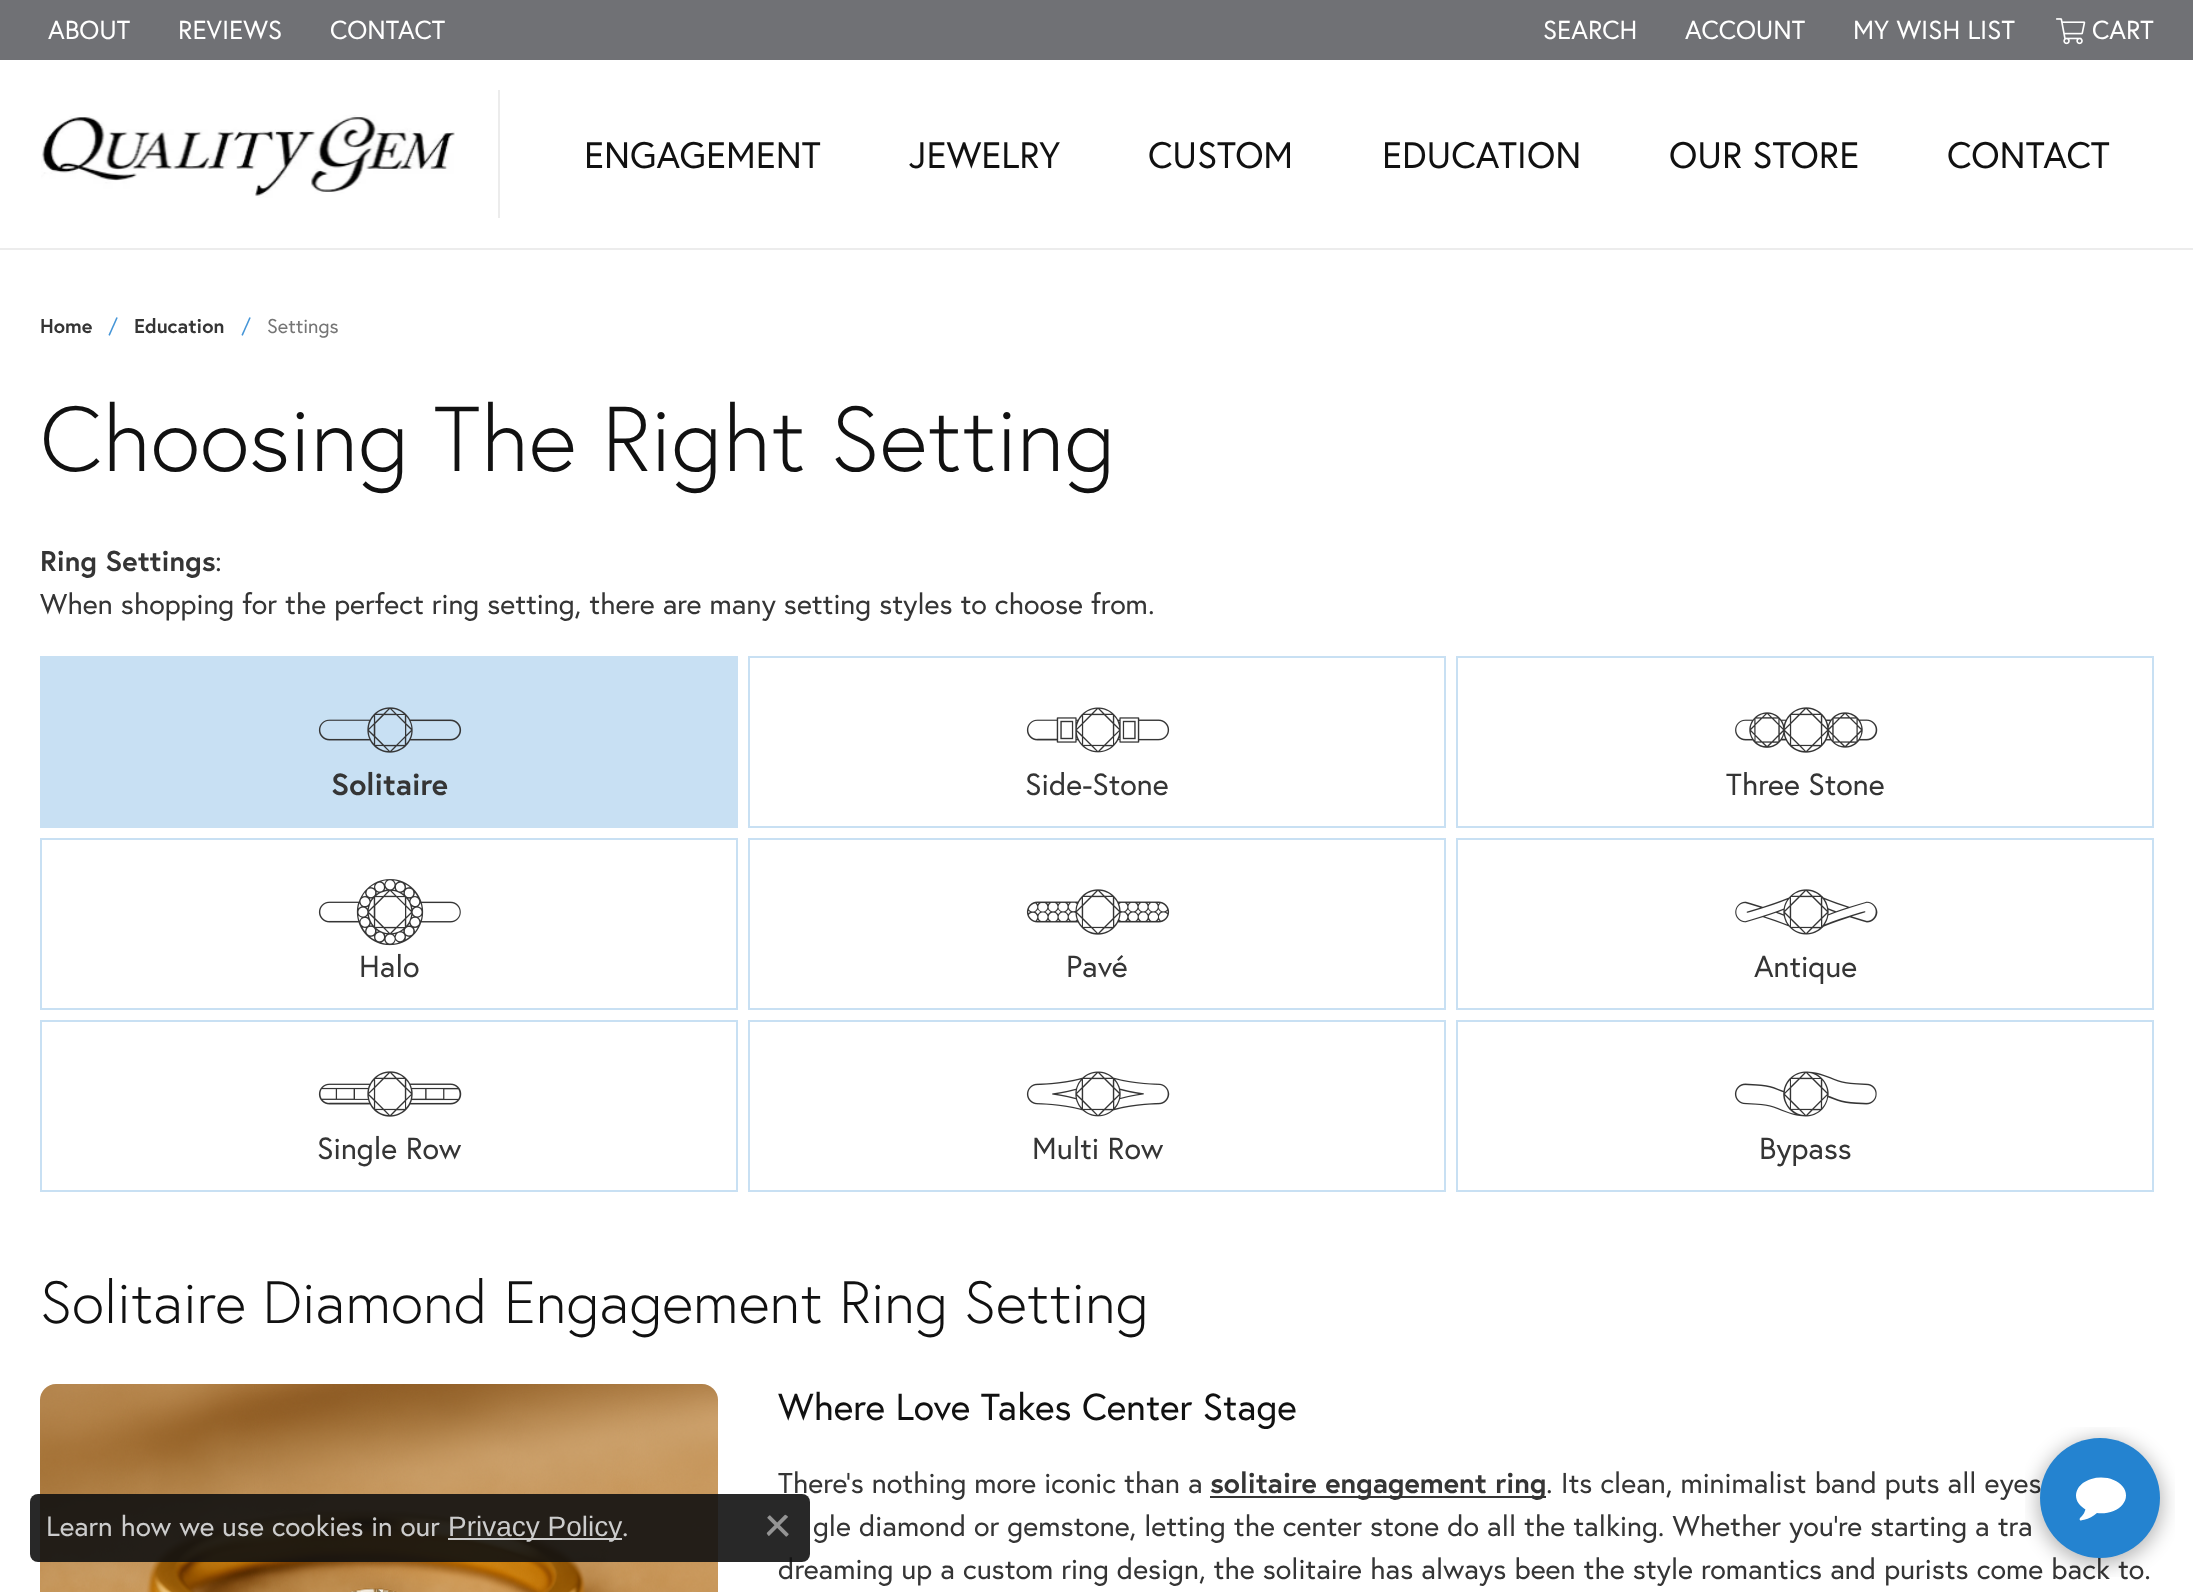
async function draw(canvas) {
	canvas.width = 2193;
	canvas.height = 1592;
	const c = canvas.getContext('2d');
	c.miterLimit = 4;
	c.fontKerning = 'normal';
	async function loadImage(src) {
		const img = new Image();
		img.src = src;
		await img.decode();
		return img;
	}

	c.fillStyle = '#fff';
	c.fillRect(0, 0, 2193, 1592);
	c.fillStyle = '#707175';
	c.fillRect(0, 0, 2193, 60);
	c.font = '26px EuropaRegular';
	c.fillStyle = '#fff';
	for (const [text, x, y] of [
		['ABOUT', 48, 39],
		['REVIEWS', 178, 39],
		['CONTACT', 330, 39],
		['SEARCH', 1543, 39],
		['ACCOUNT', 1685, 39],
		['MY WISH LIST', 1853, 39],
	]) {
		c.fillText(text, x, y);
	}
	c.drawImage(await loadImage('img1.png'), 2056, 18, 30, 27);
	c.fillText('CART', 2092, 39);
	c.fillStyle = '#ececec';
	c.fillRect(0, 248, 2193, 2);
	c.fillRect(498, 90, 2, 128);
	c.drawImage(await loadImage('img2.png'), 41, 115, 414, 83);
	c.font = '36.75px EuropaRegular';
	c.fillStyle = '#111';
	for (const [text, x, y] of [
		['ENGAGEMENT', 584, 168],
		['JEWELRY', 909, 168],
		['CUSTOM', 1148, 168],
		['EDUCATION', 1382, 168],
		['OUR STORE', 1669, 168],
		['CONTACT', 1947, 168],
	]) {
		c.fillText(text, x, y);
	}
	c.font = 'bold 20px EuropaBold';
	c.fillStyle = '#353535';
	c.fillText('Home', 40, 333);
	c.font = '20px EuropaRegular';
	c.fillStyle = '#4595d7';
	c.fillText('/', 108, 333);
	c.font = 'bold 20px EuropaBold';
	c.fillStyle = '#353535';
	c.fillText('Education', 134, 333);
	c.font = '20px EuropaRegular';
	c.fillStyle = '#4595d7';
	c.fillText('/', 241, 333);
	c.fillStyle = '#757575';
	c.fillText('Settings', 267, 333);
	c.font = '300 91.75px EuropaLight';
	c.fillStyle = '#111';
	c.fillText('Choosing The Right Setting', 40, 471);
	c.font = 'bold 28.7px EuropaBold';
	c.fillStyle = '#353535';
	c.fillText('Ring Settings', 40, 571);
	c.font = '28.7px EuropaRegular';
	c.fillText(':', 215, 571);
	c.fillText('When shopping for the perfect ring setting, there are many setting styles to choose from.', 40, 614);
	c.fillStyle = '#c8e0f3';
	c.fillRect(40, 656, 698, 172);
	c.drawImage(await loadImage('img3.png'), 318, 707, 144, 46);
	c.font = 'bold 30.5px EuropaBold';
	c.fillStyle = '#353535';
	c.fillText('Solitaire', 331, 795);
	c.strokeStyle = '#c8e0f3';
	c.lineWidth = 2;
	c.strokeRect(749, 657, 696, 170);
	c.drawImage(await loadImage('img4.png'), 1026, 707, 144, 46);
	c.font = '30.5px EuropaRegular';
	c.fillText('Side-Stone', 1025, 795);
	c.strokeRect(1457, 657, 696, 170);
	c.drawImage(await loadImage('img5.png'), 1735, 707, 143, 46);
	c.fillText('Three Stone', 1726, 795);
	c.strokeRect(41, 839, 696, 170);
	c.drawImage(await loadImage('img6.png'), 318, 879, 143, 67);
	c.fillText('Halo', 359, 977);
	c.strokeRect(749, 839, 696, 170);
	c.drawImage(await loadImage('img7.png'), 1026, 889, 144, 46);
	c.fillText('Pavé', 1066, 977);
	c.strokeRect(1457, 839, 696, 170);
	c.drawImage(await loadImage('img8.png'), 1735, 889, 143, 46);
	c.fillText('Antique', 1754, 977);
	c.strokeRect(41, 1021, 696, 170);
	c.drawImage(await loadImage('img9.png'), 318, 1071, 144, 46);
	c.fillText('Single Row', 317, 1159);
	c.strokeRect(749, 1021, 696, 170);
	c.drawImage(await loadImage('img10.png'), 1026, 1071, 144, 46);
	c.fillText('Multi Row', 1032, 1159);
	c.strokeRect(1457, 1021, 696, 170);
	c.drawImage(await loadImage('img11.png'), 1734, 1071, 143, 46);
	c.fillText('Bypass', 1759, 1159);
	c.font = '300 59.5px EuropaLight';
	c.fillStyle = '#111';
	c.fillText('Solitaire Diamond Engagement Ring Setting', 40, 1323);
	c.drawImage(await loadImage('img12.png'), 40, 1384, 678, 208);
	c.font = '37.5px EuropaRegular';
	c.fillText('Where Love Takes Center Stage', 778, 1420);
	c.font = '28.7px EuropaRegular';
	c.fillStyle = '#353535';
	c.fillText('There’s nothing more iconic than a', 778, 1493);
	c.fillRect(1210, 1496, 336, 2);
	c.font = 'bold 28.7px EuropaBold';
	c.fillText('solitaire engagement ring', 1210, 1493);
	c.font = '28.7px EuropaRegular';
	for (const [text, x, y] of [
		['. Its clean, minimalist band puts all eyes', 1546, 1493],
		['gle diamond or gemstone, letting the center stone do all the talking. Whether you’re starting a tra', 813, 1536],
		['dreaming up a custom ring design, the solitaire has always been the style romantics and purists come back to.', 778, 1579],
	]) {
		c.fillText(text, x, y);
	}
	c.fillStyle = '#111111e6';
	c.beginPath();
	c.roundRect(30, 1494, 780, 68, 8);
	c.fill();
	c.font = '28px EuropaRegular';
	c.fillStyle = '#ccc';
	c.fillText('Learn how we use cookies in our', 46, 1536);
	c.fillRect(448, 1538, 174, 2);
	c.font = '28px Liberation Sans';
	c.fillText('Privacy Policy', 448, 1536);
	c.font = '28px EuropaRegular';
	c.fillText('.', 622, 1536);
	c.drawImage(await loadImage('img13.png'), 766, 1514, 23, 23);
	c.drawImage(await loadImage('img14.png'), 2025, 1427, 150, 150);
}

draw(document.querySelector('canvas'));
